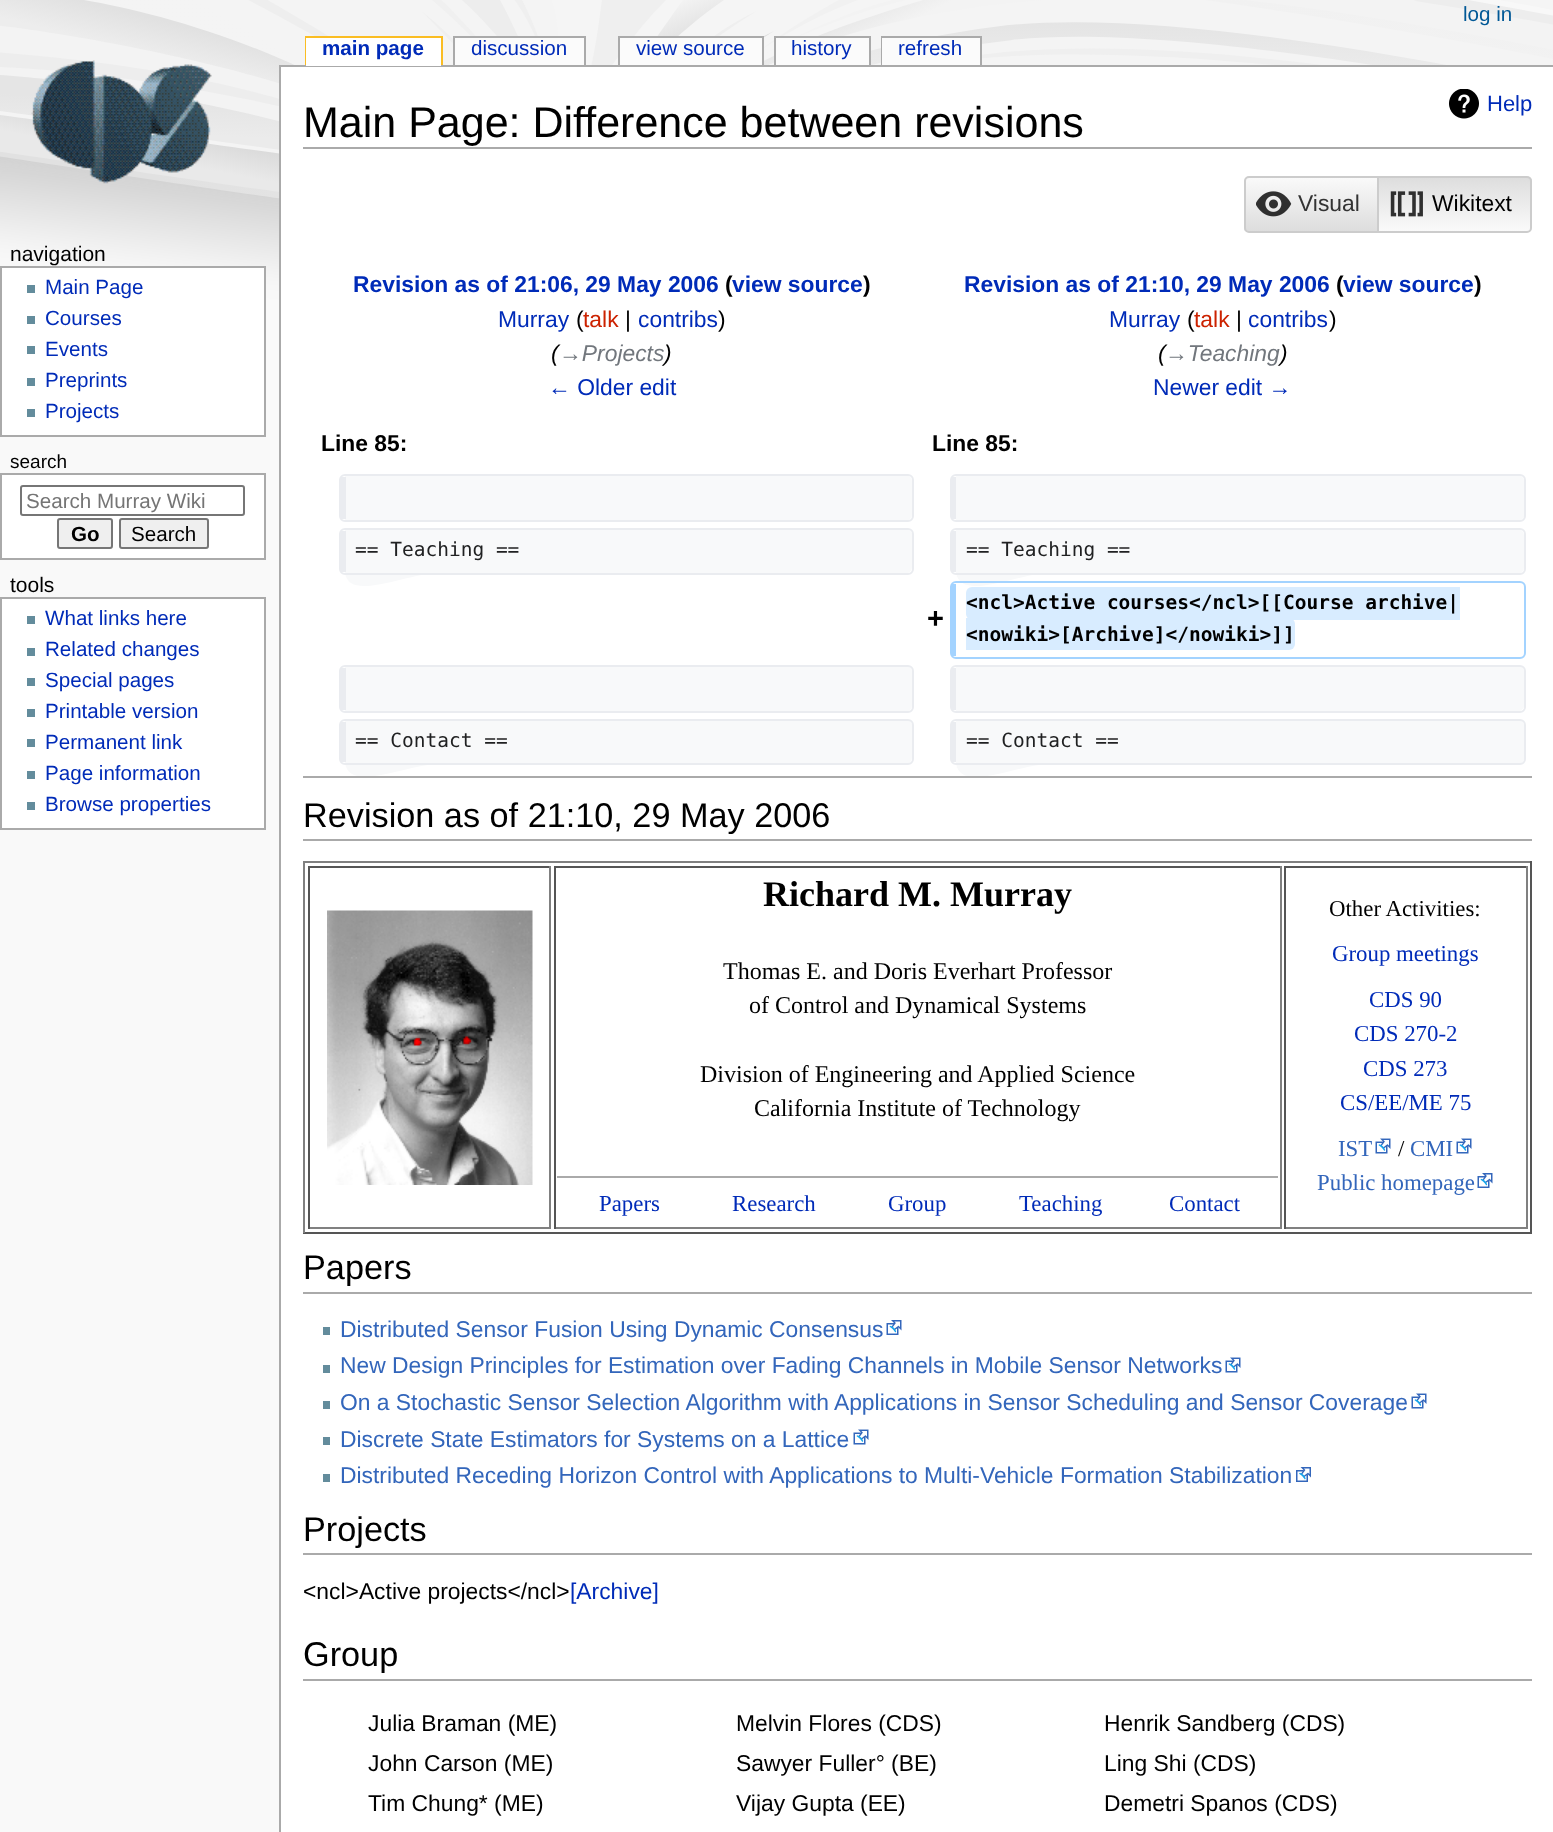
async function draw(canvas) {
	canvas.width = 1553;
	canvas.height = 1832;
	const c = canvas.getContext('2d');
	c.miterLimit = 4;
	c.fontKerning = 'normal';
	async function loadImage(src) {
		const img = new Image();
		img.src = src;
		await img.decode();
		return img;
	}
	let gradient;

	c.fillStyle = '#f9f9f9';
	c.fillRect(0, 0, 1553, 1832);
	c.drawImage(await loadImage('img1.png'), 0, 0, 1553, 315);
	c.font = '20.6px Liberation Sans';
	c.fillStyle = '#005896';
	c.fillText('log in', 1463, 21);
	for (const [x, y, w, h, color] of [
		[305, 36, 138, 2, '#fabd23'],
		[305, 36, 2, 29, '#fabd23'],
		[279, 65, 1274, 2, '#aaa'],
		[306, 38, 135, 28, '#fff'],
	]) {
		c.fillStyle = color;
		c.fillRect(x, y, w, h);
	}
	c.font = 'bold 20.6px Liberation Sans';
	c.fillStyle = '#002bb8';
	c.fillText('main page', 322, 55);
	c.fillStyle = '#fabd23';
	c.fillRect(441, 36, 2, 29);
	c.fillStyle = '#fbfbfb';
	c.fillRect(455, 38, 129, 27);
	c.font = '20.6px Liberation Sans';
	c.fillStyle = '#002bb8';
	c.fillText('discussion', 471, 55);
	for (const [x, y, w, h, color] of [
		[453, 36, 132, 2, '#aaa'],
		[584, 36, 2, 29, '#aaa'],
		[453, 36, 2, 29, '#aaa'],
		[620, 38, 142, 27, '#fbfbfb'],
	]) {
		c.fillStyle = color;
		c.fillRect(x, y, w, h);
	}
	c.fillStyle = '#002bb8';
	c.fillText('view source', 636, 55);
	for (const [x, y, w, h, color] of [
		[618, 36, 146, 2, '#aaa'],
		[762, 36, 2, 29, '#aaa'],
		[618, 36, 2, 29, '#aaa'],
		[776, 38, 93, 27, '#fbfbfb'],
	]) {
		c.fillStyle = color;
		c.fillRect(x, y, w, h);
	}
	c.fillStyle = '#002bb8';
	c.fillText('history', 791, 55);
	for (const [x, y, w, h, color] of [
		[774, 36, 96, 2, '#aaa'],
		[869, 36, 2, 29, '#aaa'],
		[774, 36, 2, 29, '#aaa'],
		[881, 36, 100, 2, '#aaa'],
		[881, 36, 2, 29, '#aaa'],
		[882, 38, 98, 27, '#fbfbfb'],
	]) {
		c.fillStyle = color;
		c.fillRect(x, y, w, h);
	}
	c.fillStyle = '#002bb8';
	c.fillText('refresh', 898, 55);
	c.fillStyle = '#aaa';
	c.fillRect(980, 36, 2, 29);
	c.drawImage(await loadImage('img2.png'), 31, 60, 181, 124);
	c.font = '21px Liberation Sans';
	c.fillStyle = '#000';
	c.fillText('navigation', 10, 261);
	c.fillStyle = '#fff';
	c.beginPath();
	c.rect(1, 267, 264, 169);
	c.fill();
	c.strokeStyle = '#aaa';
	c.lineWidth = 2;
	c.stroke();
	c.fillStyle = '#638c9c';
	c.fillRect(27, 285, 8, 8);
	c.font = '20.6px Liberation Sans';
	c.fillStyle = '#002bb8';
	c.fillText('Main Page', 45, 294);
	c.fillStyle = '#638c9c';
	c.fillRect(27, 316, 8, 8);
	c.fillStyle = '#002bb8';
	c.fillText('Courses', 45, 325);
	c.fillStyle = '#638c9c';
	c.fillRect(27, 346, 8, 8);
	c.fillStyle = '#002bb8';
	c.fillText('Events', 45, 356);
	c.fillStyle = '#638c9c';
	c.fillRect(27, 378, 8, 8);
	c.fillStyle = '#002bb8';
	c.fillText('Preprints', 45, 387);
	c.fillStyle = '#638c9c';
	c.fillRect(27, 409, 8, 8);
	c.fillStyle = '#002bb8';
	c.fillText('Projects', 45, 418);
	c.font = '19px Liberation Sans';
	c.fillStyle = '#000';
	c.fillText('search', 10, 468);
	c.fillStyle = '#fff';
	c.beginPath();
	c.rect(1, 474, 264, 85);
	c.fill();
	c.stroke();
	c.beginPath();
	c.roundRect(21, 486, 223, 29, 2);
	c.strokeStyle = '#767676';
	c.stroke();
	c.font = '20.6px Liberation Sans';
	c.fillStyle = '#757575';
	c.fillText('Search Murray Wiki', 26, 508);
	c.fillStyle = '#efefef';
	c.beginPath();
	c.roundRect(58, 519, 54, 29, 2);
	c.fill();
	c.stroke();
	c.font = 'bold 20.6px Liberation Sans';
	c.fillStyle = '#000';
	c.fillText('Go', 71, 541);
	c.fillStyle = '#efefef';
	c.beginPath();
	c.roundRect(120, 519, 88, 29, 2);
	c.fill();
	c.stroke();
	c.font = '20.6px Liberation Sans';
	c.fillStyle = '#000';
	c.fillText('Search', 131, 541);
	c.font = '21px Liberation Sans';
	c.fillText('tools', 10, 592);
	c.fillStyle = '#fff';
	c.beginPath();
	c.rect(1, 598, 264, 231);
	c.fill();
	c.strokeStyle = '#aaa';
	c.stroke();
	c.fillStyle = '#638c9c';
	c.fillRect(27, 616, 8, 8);
	c.font = '20.6px Liberation Sans';
	c.fillStyle = '#002bb8';
	c.fillText('What links here', 45, 625);
	c.fillStyle = '#638c9c';
	c.fillRect(27, 648, 8, 8);
	c.fillStyle = '#002bb8';
	c.fillText('Related changes', 45, 656);
	c.fillStyle = '#638c9c';
	c.fillRect(27, 678, 8, 8);
	c.fillStyle = '#002bb8';
	c.fillText('Special pages', 45, 687);
	c.fillStyle = '#638c9c';
	c.fillRect(27, 709, 8, 8);
	c.fillStyle = '#002bb8';
	c.fillText('Printable version', 45, 718);
	c.fillStyle = '#638c9c';
	c.fillRect(27, 739, 8, 8);
	c.fillStyle = '#002bb8';
	c.fillText('Permanent link', 45, 749);
	c.fillStyle = '#638c9c';
	c.fillRect(27, 771, 8, 8);
	c.fillStyle = '#002bb8';
	c.fillText('Page information', 45, 780);
	c.fillStyle = '#638c9c';
	c.fillRect(27, 802, 8, 8);
	c.fillStyle = '#002bb8';
	c.fillText('Browse properties', 45, 811);
	for (const [x, y, w, h, color] of [
		[281, 67, 1272, 1765, '#fff'],
		[279, 65, 2, 1767, '#aaa'],
		[303, 147, 1229, 2, '#aaa'],
	]) {
		c.fillStyle = color;
		c.fillRect(x, y, w, h);
	}
	c.font = '43px Liberation Sans';
	c.fillStyle = '#000';
	c.fillText('Main Page: Difference between revisions', 303, 137);
	c.drawImage(await loadImage('img3.png'), 1449, 89, 30, 30);
	c.font = '22px Liberation Sans';
	c.fillStyle = '#002bb8';
	c.fillText('Help', 1487, 111);
	c.save();
	c.beginPath();
	c.roundRect(1244, 176, 135, 57, [5, 0, 0, 5]);
	c.clip();
	gradient = c.createLinearGradient(1311, 177, 1311, 231);
	gradient.addColorStop(0, '#fafafa');
	gradient.addColorStop(1, '#ddd');
	c.fillStyle = gradient;
	c.fillRect(1244, 177, 133, 54);
	c.restore();
	c.beginPath();
	c.roundRect(1245, 177, 133, 55, [4, 0, 0, 4]);
	c.strokeStyle = '#ccc';
	c.stroke();
	c.drawImage(await loadImage('img4.png'), 1256, 191, 36, 26);
	c.font = '22.85px Liberation Sans';
	c.fillStyle = '#333';
	c.fillText('Visual', 1298, 211);
	c.save();
	c.beginPath();
	c.roundRect(1377, 176, 155, 57, [0, 5, 5, 0]);
	c.clip();
	gradient = c.createLinearGradient(1454, 177, 1454, 231);
	gradient.addColorStop(0, '#ddd');
	gradient.addColorStop(1, '#fafafa');
	c.fillStyle = gradient;
	c.fillRect(1379, 177, 153, 54);
	c.restore();
	c.beginPath();
	c.roundRect(1378, 177, 153, 55, [0, 4, 4, 0]);
	c.stroke();
	c.drawImage(await loadImage('img5.png'), 1390, 191, 33, 26);
	c.fillStyle = '#000';
	c.fillText('Wikitext', 1432, 211);
	c.font = 'bold 22.85px Liberation Sans';
	c.fillStyle = '#002bb8';
	c.fillText('Revision as of 21:06, 29 May 2006', 353, 292);
	c.fillStyle = '#000';
	c.fillText('(', 725, 292);
	c.fillStyle = '#002bb8';
	c.fillText('view source', 732, 292);
	c.fillStyle = '#000';
	c.fillText(')', 863, 292);
	c.font = '22.85px Liberation Sans';
	c.fillStyle = '#002bb8';
	c.fillText('Murray', 498, 327);
	c.fillStyle = '#000';
	c.fillText('(', 576, 327);
	c.fillStyle = '#c20';
	c.fillText('talk', 583, 327);
	c.fillStyle = '#000';
	c.fillText('|', 625, 327);
	c.fillStyle = '#002bb8';
	c.fillText('contribs', 638, 327);
	c.fillStyle = '#000';
	c.fillText(')', 718, 327);
	c.font = 'italic 22.85px Liberation Sans';
	c.fillText('(', 551, 361);
	c.fillStyle = '#72777d';
	c.fillText('→Projects', 559, 361);
	c.fillStyle = '#000';
	c.fillText(')', 664, 361);
	c.font = '22.85px Liberation Sans';
	c.fillStyle = '#002bb8';
	c.fillText('← Older edit', 548, 395);
	c.font = 'bold 22.85px Liberation Sans';
	c.fillText('Revision as of 21:10, 29 May 2006', 964, 292);
	c.fillStyle = '#000';
	c.fillText('(', 1336, 292);
	c.fillStyle = '#002bb8';
	c.fillText('view source', 1343, 292);
	c.fillStyle = '#000';
	c.fillText(')', 1474, 292);
	c.font = '22.85px Liberation Sans';
	c.fillStyle = '#002bb8';
	c.fillText('Murray', 1109, 327);
	c.fillStyle = '#000';
	c.fillText('(', 1187, 327);
	c.fillStyle = '#c20';
	c.fillText('talk', 1194, 327);
	c.fillStyle = '#000';
	c.fillText('|', 1236, 327);
	c.fillStyle = '#002bb8';
	c.fillText('contribs', 1248, 327);
	c.fillStyle = '#000';
	c.fillText(')', 1329, 327);
	c.font = 'italic 22.85px Liberation Sans';
	c.fillText('(', 1158, 361);
	c.fillStyle = '#72777d';
	c.fillText('→Teaching', 1165, 361);
	c.fillStyle = '#000';
	c.fillText(')', 1280, 361);
	c.font = '22.85px Liberation Sans';
	c.fillStyle = '#002bb8';
	c.fillText('Newer edit →', 1153, 395);
	c.font = 'bold 22.85px Liberation Sans';
	c.fillStyle = '#000';
	c.fillText('Line 85:', 321, 451);
	c.fillText('Line 85:', 932, 451);
	c.fillStyle = '#f8f9fa';
	c.beginPath();
	c.moveTo(345, 476);
	c.lineTo(908, 476);
	c.bezierCurveTo(913, 477, 912, 483, 912, 486);
	c.lineTo(912, 510);
	c.bezierCurveTo(912, 513, 913, 520, 907, 520);
	c.lineTo(345, 520);
	c.lineTo(345, 516);
	c.lineTo(345, 480);
	c.closePath();
	c.fill();
	c.beginPath();
	c.roundRect(340, 475, 573, 46, 5);
	c.strokeStyle = '#eaecf0';
	c.stroke();
	c.fillStyle = '#eaecf0';
	c.fillRect(341, 477, 5, 42);
	c.fillStyle = '#f8f9fa';
	c.beginPath();
	c.moveTo(956, 476);
	c.lineTo(1520, 476);
	c.bezierCurveTo(1525, 477, 1524, 483, 1524, 486);
	c.lineTo(1524, 517);
	c.bezierCurveTo(1523, 519, 1521, 520, 1519, 520);
	c.lineTo(956, 520);
	c.lineTo(956, 517);
	c.lineTo(956, 480);
	c.closePath();
	c.fill();
	c.beginPath();
	c.roundRect(951, 475, 574, 46, 5);
	c.stroke();
	c.fillStyle = '#eaecf0';
	c.fillRect(952, 477, 4, 42);
	c.fillStyle = '#f8f9fa';
	c.beginPath();
	c.moveTo(345, 530);
	c.lineTo(907, 530);
	c.bezierCurveTo(910, 530, 912, 532, 912, 534);
	c.lineTo(912, 557);
	c.bezierCurveTo(912, 561, 914, 573, 907, 573);
	c.lineTo(439, 573);
	c.bezierCurveTo(407, 573, 348, 603, 345, 572);
	c.lineTo(345, 534);
	c.closePath();
	c.fill();
	c.beginPath();
	c.roundRect(340, 529, 573, 45, 5);
	c.stroke();
	c.fillStyle = '#eaecf0';
	c.fillRect(341, 531, 5, 41);
	c.font = '19.5px DejaVu Sans Mono';
	c.fillStyle = '#202122';
	c.fillText('== Teaching ==', 355, 556);
	c.fillStyle = '#f8f9fa';
	c.beginPath();
	c.moveTo(956, 530);
	c.lineTo(1520, 530);
	c.bezierCurveTo(1526, 531, 1524, 542, 1524, 546);
	c.lineTo(1524, 562);
	c.bezierCurveTo(1524, 566, 1525, 573, 1519, 573);
	c.lineTo(1050, 573);
	c.bezierCurveTo(1018, 573, 960, 603, 956, 572);
	c.lineTo(956, 534);
	c.closePath();
	c.fill();
	c.beginPath();
	c.roundRect(951, 529, 574, 45, 5);
	c.stroke();
	c.fillStyle = '#eaecf0';
	c.fillRect(952, 531, 4, 41);
	c.fillStyle = '#202122';
	c.fillText('== Teaching ==', 966, 556);
	c.font = 'bold 29px Liberation Sans';
	c.fillStyle = '#000';
	c.fillText('+', 927, 628);
	c.beginPath();
	c.roundRect(951, 582, 574, 76, 5);
	c.strokeStyle = '#a3d3ff';
	c.stroke();
	c.fillStyle = '#a3d3ff';
	c.fillRect(952, 584, 4, 72);
	c.fillStyle = '#d8ecff';
	c.beginPath();
	c.roundRect(966, 587, 494, 33, [6, 0, 0, 6]);
	c.fill();
	c.font = 'bold 19.5px DejaVu Sans Mono';
	c.fillStyle = '#000';
	c.fillText('<ncl>Active courses<\/ncl>[[Course archive|', 966, 609);
	c.fillStyle = '#d8ecff';
	c.beginPath();
	c.roundRect(966, 618, 329, 32, [0, 6, 6, 0]);
	c.fill();
	c.fillStyle = '#000';
	c.fillText('<nowiki>[Archive]<\/nowiki>]]', 966, 641);
	c.fillStyle = '#f8f9fa';
	c.beginPath();
	c.moveTo(345, 666);
	c.lineTo(908, 666);
	c.bezierCurveTo(913, 667, 912, 673, 912, 677);
	c.lineTo(912, 700);
	c.bezierCurveTo(912, 704, 913, 711, 907, 711);
	c.lineTo(345, 711);
	c.lineTo(345, 706);
	c.lineTo(345, 671);
	c.closePath();
	c.fill();
	c.beginPath();
	c.roundRect(340, 666, 573, 46, 5);
	c.strokeStyle = '#eaecf0';
	c.stroke();
	c.fillStyle = '#eaecf0';
	c.fillRect(341, 668, 5, 42);
	c.fillStyle = '#f8f9fa';
	c.beginPath();
	c.moveTo(956, 666);
	c.lineTo(1520, 666);
	c.bezierCurveTo(1525, 667, 1524, 673, 1524, 677);
	c.lineTo(1524, 707);
	c.bezierCurveTo(1523, 709, 1521, 711, 1519, 711);
	c.lineTo(956, 711);
	c.lineTo(956, 707);
	c.lineTo(956, 671);
	c.closePath();
	c.fill();
	c.beginPath();
	c.roundRect(951, 666, 574, 46, 5);
	c.stroke();
	c.fillStyle = '#eaecf0';
	c.fillRect(952, 668, 4, 42);
	c.fillStyle = '#f8f9fa';
	c.beginPath();
	c.moveTo(345, 720);
	c.lineTo(907, 720);
	c.bezierCurveTo(910, 720, 912, 722, 912, 725);
	c.lineTo(912, 747);
	c.bezierCurveTo(912, 751, 914, 763, 907, 764);
	c.lineTo(439, 764);
	c.bezierCurveTo(407, 764, 348, 794, 345, 762);
	c.lineTo(345, 725);
	c.closePath();
	c.fill();
	c.beginPath();
	c.roundRect(340, 720, 573, 44, 5);
	c.stroke();
	c.fillStyle = '#eaecf0';
	c.fillRect(341, 722, 5, 40);
	c.font = '19.5px DejaVu Sans Mono';
	c.fillStyle = '#202122';
	c.fillText('== Contact ==', 355, 747);
	c.fillStyle = '#f8f9fa';
	c.beginPath();
	c.moveTo(956, 720);
	c.lineTo(1520, 720);
	c.bezierCurveTo(1526, 721, 1524, 732, 1524, 736);
	c.lineTo(1524, 753);
	c.bezierCurveTo(1524, 757, 1525, 763, 1519, 764);
	c.lineTo(1050, 764);
	c.bezierCurveTo(1018, 764, 960, 794, 956, 763);
	c.lineTo(956, 725);
	c.closePath();
	c.fill();
	c.beginPath();
	c.roundRect(951, 720, 574, 44, 5);
	c.stroke();
	c.fillStyle = '#eaecf0';
	c.fillRect(952, 722, 4, 40);
	c.fillStyle = '#202122';
	c.fillText('== Contact ==', 966, 747);
	c.fillStyle = '#aaa';
	c.fillRect(303, 776, 1229, 2);
	c.fillRect(303, 839, 1229, 2);
	c.font = '34.25px Liberation Sans';
	c.fillStyle = '#000';
	c.fillText('Revision as of 21:10, 29 May 2006', 303, 827);
	for (const [x, y, w, h, color] of [
		[303, 861, 1229, 2, '#808080'],
		[1530, 861, 2, 372, '#555'],
		[303, 1232, 1229, 2, '#555'],
		[303, 861, 2, 372, '#808080'],
		[308, 866, 243, 2, '#555'],
		[549, 866, 2, 363, '#808080'],
		[308, 1227, 243, 2, '#808080'],
		[308, 866, 2, 363, '#555'],
	]) {
		c.fillStyle = color;
		c.fillRect(x, y, w, h);
	}
	c.drawImage(await loadImage('img6.png'), 327, 910, 206, 275);
	for (const [x, y, w, h, color] of [
		[554, 866, 727, 2, '#555'],
		[1280, 866, 2, 363, '#808080'],
		[554, 1227, 727, 2, '#808080'],
		[554, 866, 2, 363, '#555'],
	]) {
		c.fillStyle = color;
		c.fillRect(x, y, w, h);
	}
	c.font = 'bold 36px Liberation Serif';
	c.fillStyle = '#000';
	c.fillText('Richard M. Murray', 763, 906);
	c.font = '24px Liberation Serif';
	for (const [text, x, y] of [
		['Thomas E. and Doris Everhart Professor', 723, 979],
		['of Control and Dynamical Systems', 749, 1013],
		['Division of Engineering and Applied Science', 700, 1082],
		['California Institute of Technology', 754, 1116],
	]) {
		c.fillText(text, x, y);
	}
	c.fillStyle = '#aaa';
	c.fillRect(557, 1176, 721, 2);
	c.font = '22.85px Liberation Serif';
	c.fillStyle = '#002bb8';
	for (const [text, x, y] of [
		['Papers', 599, 1211],
		['Research', 732, 1211],
		['Group', 888, 1211],
		['Teaching', 1019, 1211],
		['Contact', 1169, 1211],
	]) {
		c.fillText(text, x, y);
	}
	for (const [x, y, w, h, color] of [
		[1284, 866, 243, 2, '#555'],
		[1526, 866, 2, 363, '#808080'],
		[1284, 1227, 243, 2, '#808080'],
		[1284, 866, 2, 363, '#555'],
	]) {
		c.fillStyle = color;
		c.fillRect(x, y, w, h);
	}
	c.fillStyle = '#000';
	c.fillText('Other Activities:', 1329, 916);
	c.fillStyle = '#002bb8';
	for (const [text, x, y] of [
		['Group meetings', 1332, 961],
		['CDS 90', 1369, 1007],
		['CDS 270-2', 1354, 1041],
		['CDS 273', 1363, 1076],
		['CS/EE/ME 75', 1340, 1110],
	]) {
		c.fillText(text, x, y);
	}
	c.fillStyle = '#36b';
	c.fillText('IST', 1338, 1156);
	c.drawImage(await loadImage('img7.png'), 1375, 1138, 16, 16);
	c.fillStyle = '#000';
	c.fillText('/', 1398, 1156);
	c.fillStyle = '#36b';
	c.fillText('CMI', 1410, 1156);
	c.drawImage(await loadImage('img7.png'), 1456, 1138, 16, 16);
	c.fillText('Public homepage', 1317, 1190);
	c.drawImage(await loadImage('img8.png'), 1477, 1173, 16, 15);
	c.fillStyle = '#aaa';
	c.fillRect(303, 1292, 1229, 2);
	c.font = '34.25px Liberation Sans';
	c.fillStyle = '#000';
	c.fillText('Papers', 303, 1279);
	c.fillStyle = '#638c9c';
	c.fillRect(323, 1327, 7, 8);
	c.font = '22.85px Liberation Sans';
	c.fillStyle = '#36b';
	c.fillText('Distributed Sensor Fusion Using Dynamic Consensus', 340, 1337);
	c.drawImage(await loadImage('img8.png'), 886, 1320, 16, 15);
	c.fillStyle = '#638c9c';
	c.fillRect(323, 1365, 7, 8);
	c.fillStyle = '#36b';
	c.fillText('New Design Principles for Estimation over Fading Channels in Mobile Sensor Networks', 340, 1373);
	c.drawImage(await loadImage('img7.png'), 1225, 1357, 16, 16);
	c.fillStyle = '#638c9c';
	c.fillRect(323, 1401, 7, 8);
	c.fillStyle = '#36b';
	c.fillText('On a Stochastic Sensor Selection Algorithm with Applications in Sensor Scheduling and Sensor Coverage', 340, 1410);
	c.drawImage(await loadImage('img7.png'), 1411, 1393, 16, 16);
	c.fillStyle = '#638c9c';
	c.fillRect(323, 1437, 7, 8);
	c.fillStyle = '#36b';
	c.fillText('Discrete State Estimators for Systems on a Lattice', 340, 1447);
	c.drawImage(await loadImage('img7.png'), 853, 1429, 16, 16);
	c.fillStyle = '#638c9c';
	c.fillRect(323, 1474, 7, 8);
	c.fillStyle = '#36b';
	c.fillText('Distributed Receding Horizon Control with Applications to Multi-Vehicle Formation Stabilization', 340, 1483);
	c.drawImage(await loadImage('img9.png'), 1296, 1467, 15, 15);
	c.fillStyle = '#aaa';
	c.fillRect(303, 1553, 1229, 2);
	c.font = '34.25px Liberation Sans';
	c.fillStyle = '#000';
	c.fillText('Projects', 303, 1541);
	c.font = '22.85px Liberation Sans';
	c.fillText('<ncl>Active projects<\/ncl>', 303, 1599);
	c.fillStyle = '#002bb8';
	c.fillText('[Archive]', 570, 1599);
	c.fillStyle = '#aaa';
	c.fillRect(303, 1679, 1229, 2);
	c.font = '34.25px Liberation Sans';
	c.fillStyle = '#000';
	c.fillText('Group', 303, 1666);
	c.font = '22.85px Liberation Sans';
	for (const [text, x, y] of [
		['Julia Braman (ME)', 368, 1731],
		['Melvin Flores (CDS)', 736, 1731],
		['Henrik Sandberg (CDS)', 1104, 1731],
		['John Carson (ME)', 368, 1771],
		['Sawyer Fuller° (BE)', 736, 1771],
		['Ling Shi (CDS)', 1104, 1771],
		['Tim Chung* (ME)', 368, 1811],
		['Vijay Gupta (EE)', 736, 1811],
		['Demetri Spanos (CDS)', 1104, 1811],
	]) {
		c.fillText(text, x, y);
	}
}

draw(document.querySelector('canvas'));
